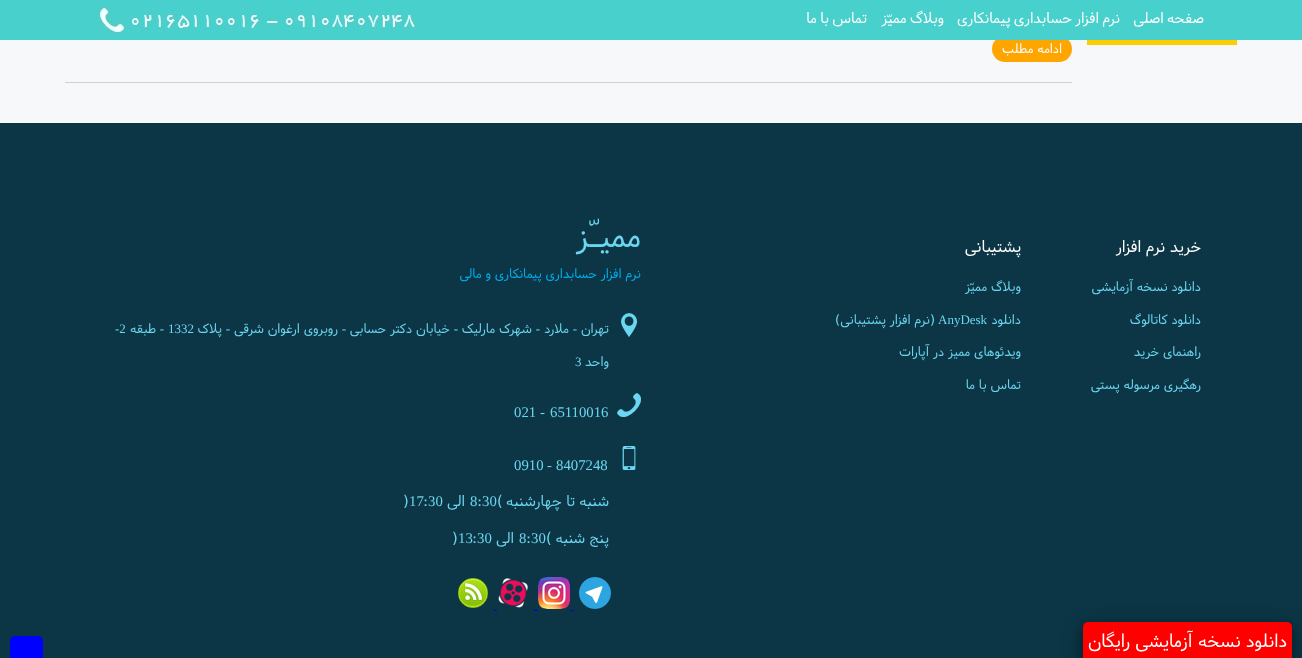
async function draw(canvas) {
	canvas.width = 1302;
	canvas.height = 658;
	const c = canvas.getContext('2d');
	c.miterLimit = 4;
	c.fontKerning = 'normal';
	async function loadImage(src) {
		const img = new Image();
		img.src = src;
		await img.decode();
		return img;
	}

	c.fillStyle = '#f7f8fa';
	c.fillRect(0, 0, 1302, 658);
	c.fillStyle = '#ffa500';
	c.beginPath();
	c.roundRect(992, 36, 80, 26, 13);
	c.fill();
	c.fillStyle = '#48d1cc';
	c.fillRect(0, 0, 1302, 40);
	c.wordSpacing = '-1px';
	c.direction = 'rtl';
	c.font = '14.75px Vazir';
	c.fillStyle = '#fff';
	for (const [text, x, y] of [
		['صفحه اصلی', 1204, 23],
		['نرم افزار حسابداری پیمانکاری', 1120, 23],
		['وبلاگ ممیّز', 944, 23],
		['تماس با ما', 867, 23],
	]) {
		c.fillText(text, x, y);
	}
	c.drawImage(await loadImage('img1.png'), 91, 0, 334, 35);
	c.drawImage(await loadImage('img2.png'), 1087, 40, 150, 5);
	c.wordSpacing = '0px';
	c.font = '13px Vazir';
	c.fillText('ادامه مطلب', 1062, 53);
	c.fillStyle = '#d0d0d0';
	c.fillRect(65, 82, 1007, 1);
	c.fillStyle = '#0c3646';
	c.fillRect(0, 123, 1302, 535);
	c.font = '16px Vazir';
	c.fillStyle = '#fff';
	c.fillText('خرید نرم افزار', 1201, 252);
	c.font = '13px Vazir';
	c.fillStyle = '#6bd6f0';
	for (const [text, x, y] of [
		['دانلود نسخه آزمایشی', 1201, 291],
		['دانلود کاتالوگ', 1201, 324],
		['راهنمای خرید', 1201, 356],
		['رهگیری مرسوله پستی', 1201, 389],
	]) {
		c.fillText(text, x, y);
	}
	c.font = '16px Vazir';
	c.fillStyle = '#fff';
	c.fillText('پشتیبانی', 1021, 252);
	c.font = '13px Vazir';
	c.fillStyle = '#6bd6f0';
	c.fillText('وبلاگ ممیّز', 1021, 291);
	c.fillText('دانلود', 1021, 324);
	c.direction = 'ltr';
	c.font = '13px Liberation Serif';
	c.fillText('AnyDesk', 938, 324);
	c.direction = 'rtl';
	c.font = '13px Vazir';
	for (const [text, x, y] of [
		['(نرم افزار پشتیبانی)', 935, 324],
		['ویدئوهای ممیز در آپارات', 1021, 356],
		['تماس با ما', 1021, 389],
	]) {
		c.fillText(text, x, y);
	}
	c.font = '32px Vazir';
	c.fillText('ممیـّز', 641, 247);
	c.font = '13px Vazir';
	c.fillStyle = '#00aeed';
	c.fillText('نرم افزار حسابداری پیمانکاری و مالی', 641, 278);
	c.drawImage(await loadImage('img3.png'), 621, 313, 17, 24);
	c.fillStyle = '#6bd6f0';
	c.fillText('تهران', 609, 333);
	c.font = '13px Liberation Serif';
	c.fillText('-', 577, 333);
	c.font = '13px Vazir';
	c.fillText('ملارد', 569, 333);
	c.font = '13px Liberation Serif';
	c.fillText('-', 540, 333);
	c.font = '13px Vazir';
	c.fillText('شهرک مارلیک', 532, 333);
	c.font = '13px Liberation Serif';
	c.fillText('-', 458, 333);
	c.font = '13px Vazir';
	c.fillText('خیابان دکتر حسابی', 450, 333);
	c.font = '13px Liberation Serif';
	c.fillText('-', 346, 333);
	c.font = '13px Vazir';
	c.fillText('روبروی ارغوان شرقی', 338, 333);
	c.font = '13px Liberation Serif';
	c.fillText('-', 230, 333);
	c.font = '13px Vazir';
	c.fillText('پلاک', 222, 333);
	c.direction = 'ltr';
	c.font = '13px Liberation Serif';
	c.fillText('1332', 168, 333);
	c.direction = 'rtl';
	c.fillText('-', 164, 333);
	c.font = '13px Vazir';
	c.fillText('طبقه', 156, 333);
	c.direction = 'ltr';
	c.font = '13px Liberation Serif';
	c.fillText('-2', 115, 333);
	c.direction = 'rtl';
	c.font = '13px Vazir';
	c.fillText('واحد', 609, 366);
	c.direction = 'ltr';
	c.font = '13px Liberation Serif';
	c.fillText('3', 575, 366);
	c.drawImage(await loadImage('img4.png'), 617, 393, 24, 24);
	c.font = '14.75px Liberation Serif';
	for (const [text, x, y] of [
		['65110016', 550, 417],
		['-', 540, 417],
		['021', 514, 417],
	]) {
		c.fillText(text, x, y);
	}
	c.drawImage(await loadImage('img5.png'), 622, 446, 14, 24);
	for (const [text, x, y] of [
		['8407248', 556, 470],
		['-', 547, 470],
		['0910', 514, 470],
	]) {
		c.fillText(text, x, y);
	}
	c.direction = 'rtl';
	c.font = '14.75px Vazir';
	c.fillText('شنبه تا چهارشنبه', 609, 506);
	c.direction = 'ltr';
	c.fillText('(', 497, 506);
	c.font = '14.75px Liberation Serif';
	c.fillText('30', 482, 506);
	c.font = '14.75px Vazir';
	c.fillText(':', 477, 506);
	c.font = '14.75px Liberation Serif';
	c.fillText('8', 470, 506);
	c.direction = 'rtl';
	c.font = '14.75px Vazir';
	c.fillText('الی', 465, 506);
	c.direction = 'ltr';
	c.font = '14.75px Liberation Serif';
	c.fillText('30', 428, 506);
	c.font = '14.75px Vazir';
	c.fillText(':', 423, 506);
	c.font = '14.75px Liberation Serif';
	c.fillText('17', 409, 506);
	c.font = '14.75px Vazir';
	c.fillText(')', 403, 506);
	c.direction = 'rtl';
	c.fillText('پنج شنبه', 609, 543);
	c.direction = 'ltr';
	c.fillText('(', 546, 543);
	c.font = '14.75px Liberation Serif';
	c.fillText('30', 531, 543);
	c.font = '14.75px Vazir';
	c.fillText(':', 526, 543);
	c.font = '14.75px Liberation Serif';
	c.fillText('8', 519, 543);
	c.direction = 'rtl';
	c.font = '14.75px Vazir';
	c.fillText('الی', 514, 543);
	c.direction = 'ltr';
	c.font = '14.75px Liberation Serif';
	c.fillText('30', 477, 543);
	c.font = '14.75px Vazir';
	c.fillText(':', 472, 543);
	c.font = '14.75px Liberation Serif';
	c.fillText('13', 458, 543);
	c.font = '14.75px Vazir';
	c.fillText(')', 452, 543);
	c.drawImage(await loadImage('img6.png'), 579, 577, 32, 32);
	c.drawImage(await loadImage('img7.png'), 538, 577, 32, 32);
	c.drawImage(await loadImage('img8.png'), 498, 578, 30, 30);
	c.drawImage(await loadImage('img9.png'), 458, 578, 30, 30);
	for (const [x, y, w, h, color] of [
		[570, 610, 4, 1, '#00e'],
		[534, 610, 4, 1, '#00e'],
		[494, 610, 3, 1, '#00e'],
	]) {
		c.fillStyle = color;
		c.fillRect(x, y, w, h);
	}
	c.fillStyle = '#00000063';
	c.filter = 'blur(10px)';
	c.beginPath();
	c.roundRect(1083, 628, 209, 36, 5);
	c.fill();
	c.filter = 'none';
	c.fillStyle = '#00000033';
	c.filter = 'blur(4px)';
	c.beginPath();
	c.roundRect(1083, 626, 209, 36, 5);
	c.fill();
	c.filter = 'none';
	c.fillStyle = '#f00';
	c.beginPath();
	c.roundRect(1083, 622, 209, 36, [5, 5, 0, 0]);
	c.fill();
	c.direction = 'rtl';
	c.font = '18px Vazir';
	c.fillStyle = '#fff';
	c.fillText('دانلود نسخه آزمایشی رایگان', 1287, 647);
	c.fillStyle = '#00f';
	c.beginPath();
	c.roundRect(10, 636, 33, 22, [5, 5, 0, 0]);
	c.fill();
}

draw(document.querySelector('canvas'));
